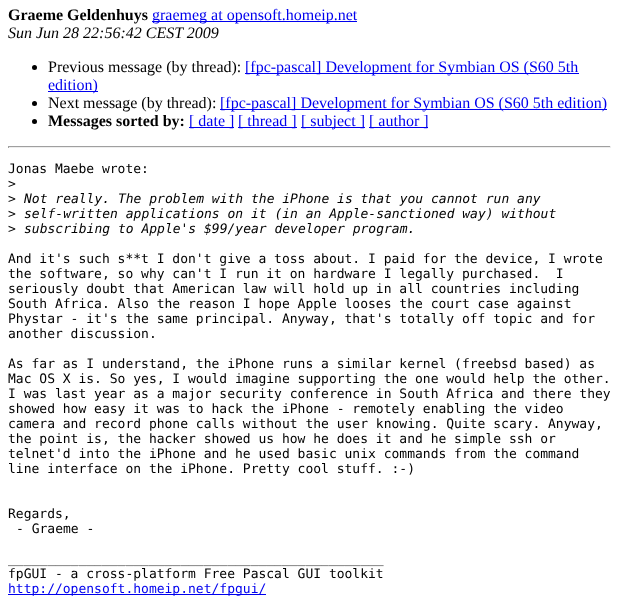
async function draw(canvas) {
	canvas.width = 619;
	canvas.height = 609;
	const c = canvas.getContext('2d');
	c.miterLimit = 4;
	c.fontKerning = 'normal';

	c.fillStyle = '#fff';
	c.fillRect(0, 0, 619, 609);
	c.font = 'bold 16px Liberation Serif';
	c.fillStyle = '#000';
	c.fillText('Graeme Geldenhuys', 8, 20);
	c.fillStyle = '#00e';
	c.fillRect(152, 21, 205, 1);
	c.font = '16px Liberation Serif';
	c.fillText('graemeg at opensoft.homeip.net', 152, 20);
	c.font = 'italic 16px Liberation Serif';
	c.fillStyle = '#000';
	c.fillText('Sun Jun 28 22:56:42 CEST 2009', 8, 38);
	c.beginPath();
	c.arc(34.5, 67.5, 2.5, 0, 2 * Math.PI);
	c.fill();
	c.font = '16px Liberation Serif';
	c.fillText('Previous message (by thread):', 48, 72);
	c.fillStyle = '#00e';
	c.fillRect(245, 73, 334, 1);
	c.fillText('[fpc-pascal] Development for Symbian OS (S60 5th', 245, 72);
	c.fillRect(48, 91, 50, 1);
	c.fillText('edition)', 48, 90);
	c.fillStyle = '#000';
	c.beginPath();
	c.arc(34.5, 103.5, 2.5, 0, 2 * Math.PI);
	c.fill();
	c.fillText('Next message (by thread):', 48, 108);
	c.fillStyle = '#00e';
	c.fillRect(220, 109, 387, 1);
	c.fillText('[fpc-pascal] Development for Symbian OS (S60 5th edition)', 220, 108);
	c.fillStyle = '#000';
	c.beginPath();
	c.arc(34.5, 121.5, 2.5, 0, 2 * Math.PI);
	c.fill();
	c.font = 'bold 16px Liberation Serif';
	c.fillText('Messages sorted by:', 48, 126);
	c.fillStyle = '#00e';
	c.fillRect(189, 127, 45, 1);
	c.font = '16px Liberation Serif';
	c.fillText('[ date ]', 189, 126);
	c.fillRect(238, 127, 59, 1);
	c.fillText('[ thread ]', 238, 126);
	c.fillRect(301, 127, 64, 1);
	c.fillText('[ subject ]', 301, 126);
	c.fillRect(369, 127, 59, 1);
	c.fillText('[ author ]', 369, 126);
	for (const [x, y, w, h, color] of [
		[8, 146, 603, 1, '#9f9f9f'],
		[610, 146, 1, 2, '#eee'],
		[8, 147, 603, 1, '#eee'],
		[8, 146, 1, 2, '#9f9f9f'],
	]) {
		c.fillStyle = color;
		c.fillRect(x, y, w, h);
	}
	c.font = '13px DejaVu Sans Mono';
	c.fillStyle = '#000';
	for (const [text, x, y] of [
		['Jonas Maebe wrote:', 8, 173],
		['>', 8, 188],
		['>', 8, 203],
	]) {
		c.fillText(text, x, y);
	}
	c.font = 'italic 13px DejaVu Sans Mono';
	c.fillText('Not really. The problem with the iPhone is that you cannot run any', 24, 203);
	c.font = '13px DejaVu Sans Mono';
	c.fillText('>', 8, 218);
	c.font = 'italic 13px DejaVu Sans Mono';
	c.fillText('self-written applications on it (in an Apple-sanctioned way) without', 24, 218);
	c.font = '13px DejaVu Sans Mono';
	c.fillText('>', 8, 233);
	c.font = 'italic 13px DejaVu Sans Mono';
	c.fillText('subscribing to Apple\'s $99/year developer program.', 24, 233);
	c.font = '13px DejaVu Sans Mono';
	for (const [text, x, y] of [
		['And it\'s such s**t I don\'t give a toss about. I paid for the device, I wrote', 8, 263],
		['the software, so why can\'t I run it on hardware I legally purchased.  I', 8, 278],
		['seriously doubt that American law will hold up in all countries including', 8, 293],
		['South Africa. Also the reason I hope Apple looses the court case against', 8, 308],
		['Phystar - it\'s the same principal. Anyway, that\'s totally off topic and for', 8, 323],
		['another discussion.', 8, 338],
		['As far as I understand, the iPhone runs a similar kernel (freebsd based) as', 8, 368],
		['Mac OS X is. So yes, I would imagine supporting the one would help the other.', 8, 383],
		['I was last year as a major security conference in South Africa and there they', 8, 398],
		['showed how easy it was to hack the iPhone - remotely enabling the video', 8, 413],
		['camera and record phone calls without the user knowing. Quite scary. Anyway,', 8, 428],
		['the point is, the hacker showed us how he does it and he simple ssh or', 8, 443],
		['telnet\'d into the iPhone and he used basic unix commands from the command', 8, 458],
		['line interface on the iPhone. Pretty cool stuff. :-)', 8, 473],
		['Regards,', 8, 518],
		['- Graeme -', 16, 533],
		['________________________________________________', 8, 563],
		['fpGUI - a cross-platform Free Pascal GUI toolkit', 8, 578],
	]) {
		c.fillText(text, x, y);
	}
	c.fillStyle = '#00e';
	c.fillRect(8, 594, 258, 1);
	c.fillText('http://opensoft.homeip.net/fpgui/', 8, 593);
}

draw(document.querySelector('canvas'));
